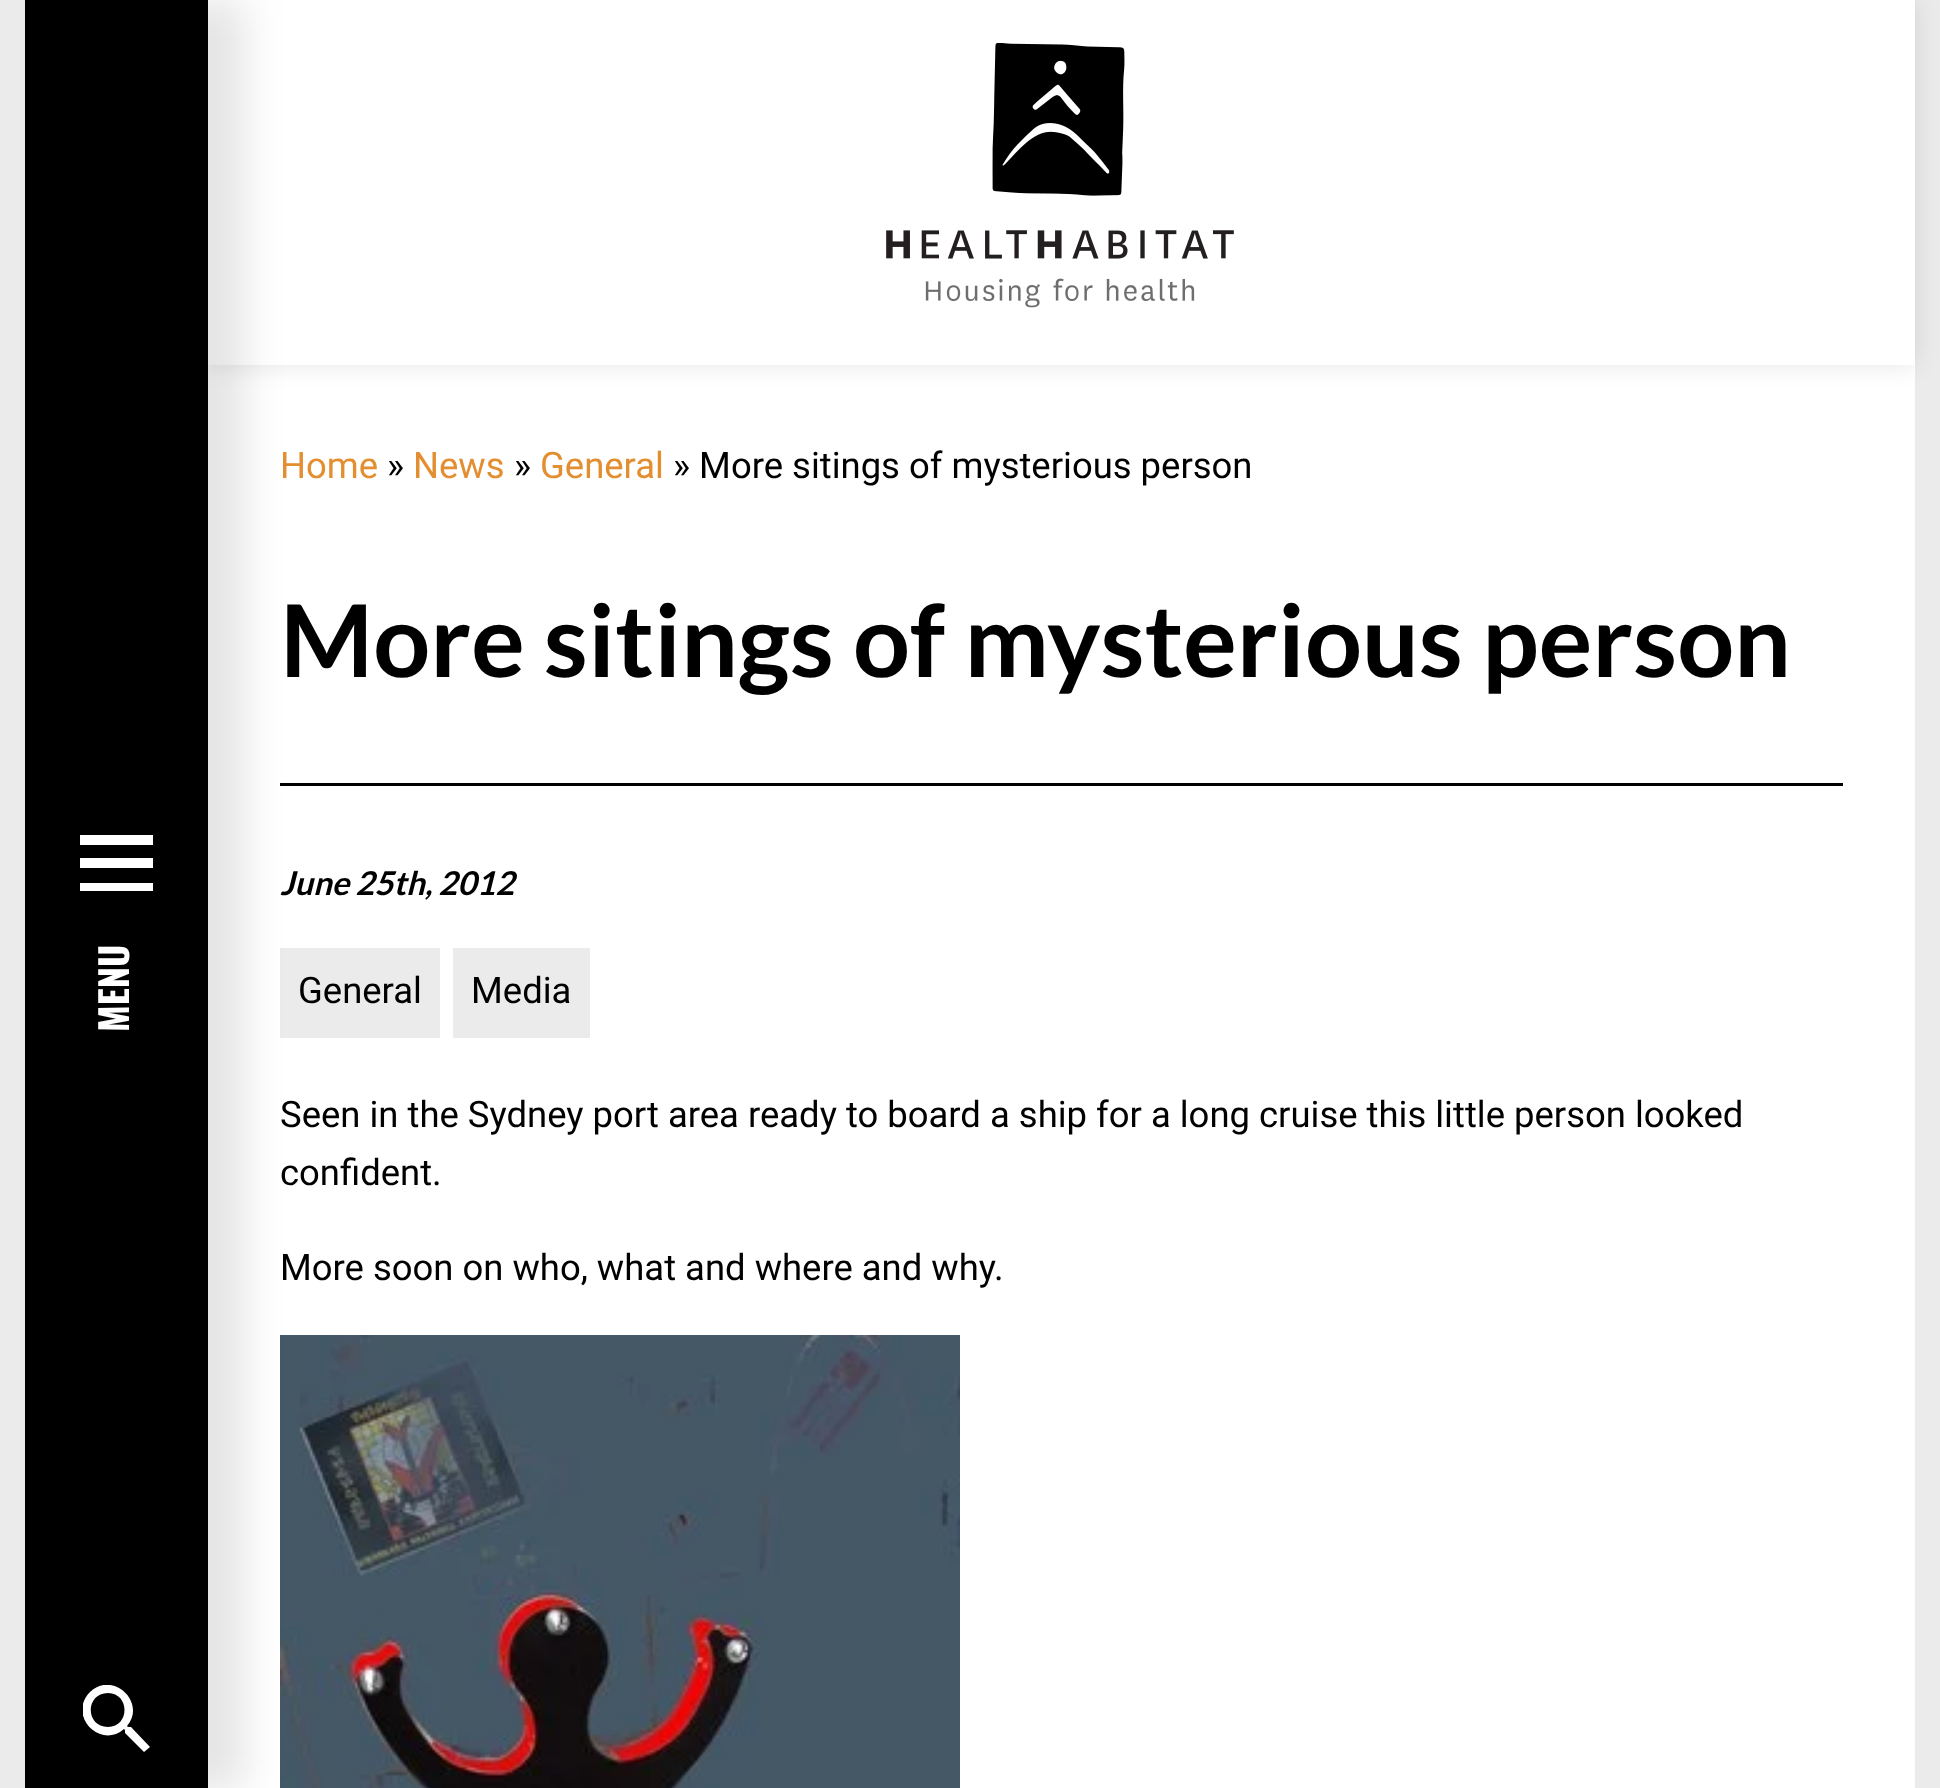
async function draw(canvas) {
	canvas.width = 1940;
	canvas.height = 1788;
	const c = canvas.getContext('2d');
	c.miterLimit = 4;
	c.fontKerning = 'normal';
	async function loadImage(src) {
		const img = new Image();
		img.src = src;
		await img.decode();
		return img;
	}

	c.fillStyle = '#ebebeb';
	c.fillRect(0, 0, 1940, 1788);
	c.fillStyle = '#fff';
	c.fillRect(208, 0, 1707, 1788);
	c.save();
	c.beginPath();
	c.moveTo(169, 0);
	c.lineTo(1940, 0);
	c.lineTo(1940, 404);
	c.lineTo(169, 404);
	c.closePath();
	c.moveTo(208, 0);
	c.lineTo(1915, 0);
	c.lineTo(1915, 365);
	c.lineTo(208, 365);
	c.closePath();
	c.clip('evenodd');
	c.fillStyle = '#0000001a';
	c.filter = 'blur(12.5px)';
	c.beginPath();
	c.rect(208, 0, 1707, 365);
	c.fill();
	c.filter = 'none';
	c.restore();
	c.drawImage(await loadImage('img1.png'), 886, 43, 348, 265);
	c.fillStyle = '#000';
	c.fillRect(280, 783, 1563, 3);
	c.fillStyle = '#ebebeb';
	c.fillRect(280, 948, 160, 90);
	c.drawImage(await loadImage('img2.png'), 280, 1335, 680, 453);
	c.fillStyle = '#0000001a';
	c.filter = 'blur(19px)';
	c.beginPath();
	c.rect(63, 0, 182, 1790);
	c.fill();
	c.filter = 'none';
	for (const [x, y, w, h, color] of [
		[25, 0, 183, 1788, '#000'],
		[80, 858, 73, 10, '#fff'],
		[80, 835, 73, 10, '#fff'],
		[80, 883, 73, 8, '#fff'],
	]) {
		c.fillStyle = color;
		c.fillRect(x, y, w, h);
	}
	c.font = 'bold 38px Oswald';
	c.save();
	c.translate(129, 1032);
	c.rotate(-90 * Math.PI / 180);
	c.fillText('MENU', 0, 0);
	c.restore();
	c.save();
	c.beginPath();
	c.rect(83, 1685, 67, 68);
	c.clip();
	c.beginPath();
	c.moveTo(131, 1727);
	c.lineTo(128, 1727);
	c.lineTo(127, 1726);
	c.bezierCurveTo(147, 1703, 113, 1670, 90, 1692);
	c.bezierCurveTo(67, 1715, 100, 1750, 124, 1729);
	c.lineTo(125, 1730);
	c.lineTo(125, 1733);
	c.lineTo(144, 1752);
	c.lineTo(150, 1747);
	c.closePath();
	c.moveTo(108, 1727);
	c.bezierCurveTo(85, 1727, 85, 1693, 108, 1693);
	c.bezierCurveTo(130, 1693, 130, 1727, 108, 1727);
	c.closePath();
	c.fill();
	c.restore();
	c.font = '36.45px Roboto';
	c.fillStyle = '#e38e30';
	c.fillText('Home', 280, 478);
	c.fillStyle = '#000';
	c.fillText('»', 387, 478);
	c.fillStyle = '#e38e30';
	c.fillText('News', 413, 478);
	c.fillStyle = '#000';
	c.fillText('»', 514, 478);
	c.fillStyle = '#e38e30';
	c.fillText('General', 540, 478);
	c.fillStyle = '#000';
	c.fillText('» More sitings of mysterious person', 673, 478);
	c.font = 'bold 100.25px Lato';
	c.fillText('More sitings of mysterious person', 280, 677);
	c.font = 'italic bold 32.75px Lato';
	c.fillText('June 25th, 2012', 280, 895);
	c.font = '36.45px Roboto';
	c.fillText('General', 298, 1003);
	c.fillStyle = '#ebebeb';
	c.fillRect(453, 948, 137, 90);
	c.fillStyle = '#000';
	for (const [text, x, y] of [
		['Media', 471, 1003],
		['Seen in the Sydney port area ready to board a ship for a long cruise this little person looked', 280, 1127],
		['confident.', 280, 1185],
		['More soon on who, what and where and why.', 280, 1280],
	]) {
		c.fillText(text, x, y);
	}
}

draw(document.querySelector('canvas'));
